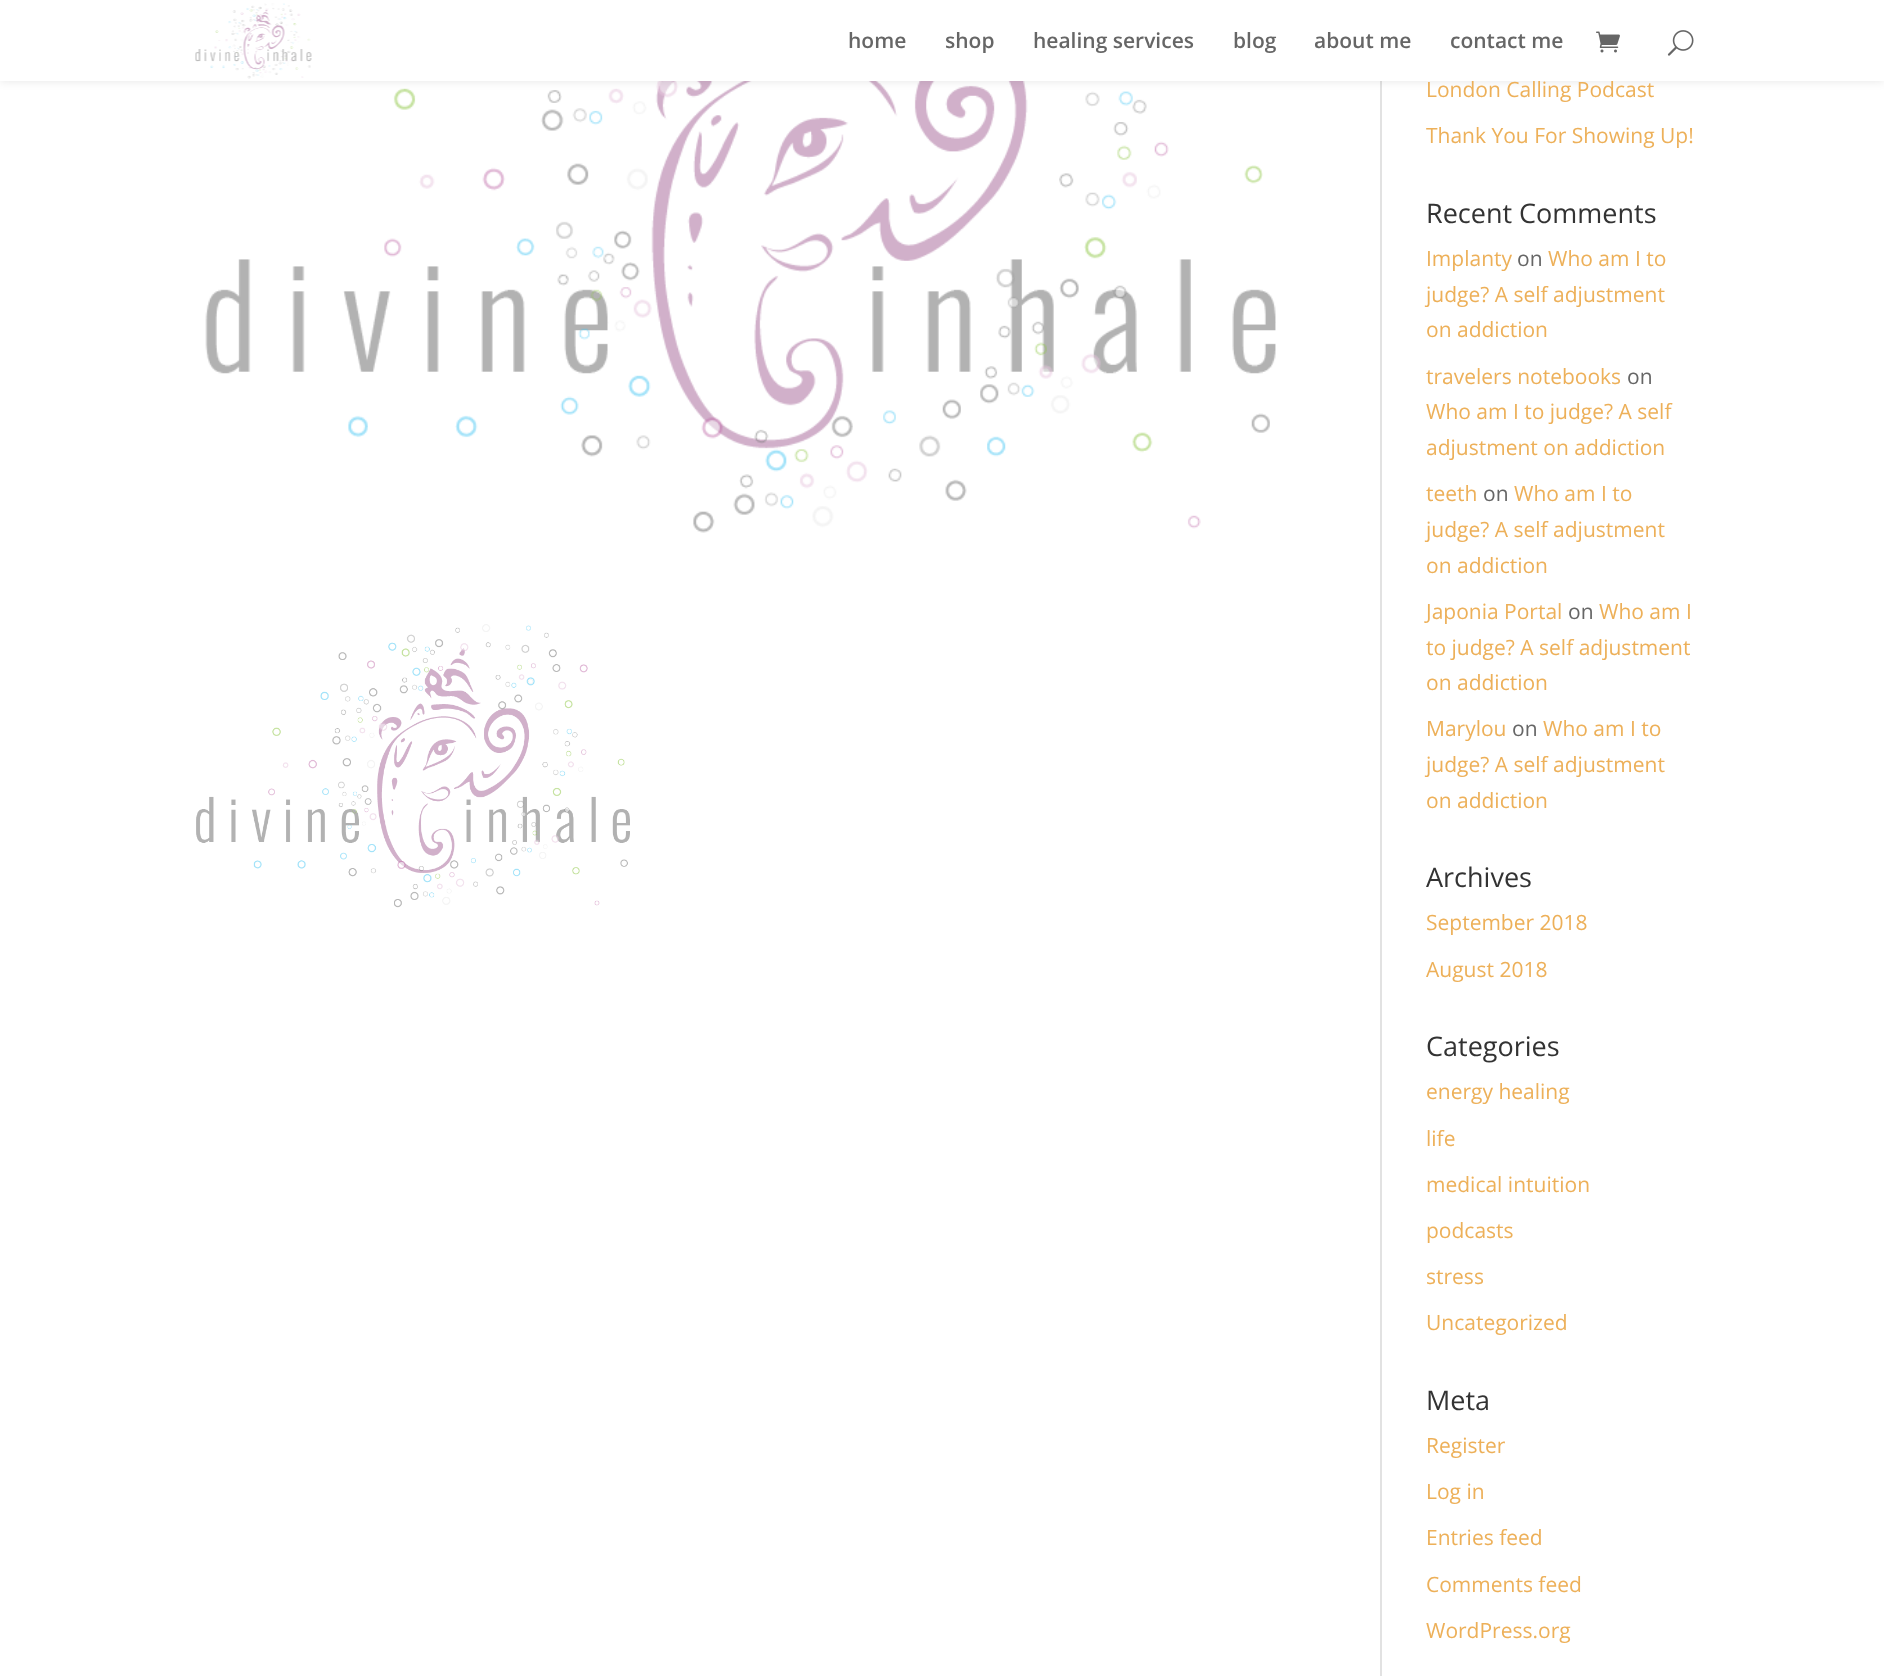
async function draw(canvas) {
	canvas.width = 1884;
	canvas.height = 1676;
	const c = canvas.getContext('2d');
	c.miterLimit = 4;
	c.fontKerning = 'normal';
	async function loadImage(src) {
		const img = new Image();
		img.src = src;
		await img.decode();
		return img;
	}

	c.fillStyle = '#fff';
	c.fillRect(0, 0, 1884, 1676);
	c.fillStyle = '#e2e2e2';
	c.fillRect(1380, 81, 2, 1595);
	c.drawImage(await loadImage('img4.png'), 205, 81, 1071, 452);
	c.fillStyle = '#0000001a';
	c.filter = 'blur(5px)';
	c.beginPath();
	c.rect(0, 0, 1884, 81);
	c.fill();
	c.filter = 'none';
	c.fillStyle = '#fff';
	c.fillRect(0, 0, 1884, 81);
	c.drawImage(await loadImage('img1.png'), 195, 3, 117, 76);
	c.font = '600 21px Open Sans';
	c.fillStyle = '#666';
	for (const [text, x, y] of [
		['home', 848, 48],
		['shop', 945, 48],
		['healing services', 1033, 48],
		['blog', 1233, 48],
		['about me', 1314, 48],
		['contact me', 1450, 48],
	]) {
		c.fillText(text, x, y);
	}
	c.drawImage(await loadImage('img2.png'), 1596, 31, 24, 22);
	c.drawImage(await loadImage('img3.png'), 1667, 30, 27, 26);
	c.drawImage(await loadImage('img5.png'), 196, 624, 434, 284);
	c.font = '21px Open Sans';
	c.fillStyle = '#edb059';
	c.fillText('London Calling Podcast', 1426, 97);
	c.fillText('Thank You For Showing Up!', 1426, 143);
	c.font = '27px Open Sans';
	c.fillStyle = '#333';
	c.fillText('Recent Comments', 1426, 223);
	c.font = '21px Open Sans';
	c.fillStyle = '#edb059';
	c.fillText('Implanty', 1426, 266);
	c.fillStyle = '#666';
	c.fillText('on', 1517, 266);
	c.fillStyle = '#edb059';
	for (const [text, x, y] of [
		['Who am I to', 1548, 266],
		['judge? A self adjustment', 1426, 302],
		['on addiction', 1426, 337],
		['travelers notebooks', 1426, 384],
	]) {
		c.fillText(text, x, y);
	}
	c.fillStyle = '#666';
	c.fillText('on', 1627, 384);
	c.fillStyle = '#edb059';
	for (const [text, x, y] of [
		['Who am I to judge? A self', 1426, 419],
		['adjustment on addiction', 1426, 455],
		['teeth', 1426, 501],
	]) {
		c.fillText(text, x, y);
	}
	c.fillStyle = '#666';
	c.fillText('on', 1483, 501);
	c.fillStyle = '#edb059';
	for (const [text, x, y] of [
		['Who am I to', 1514, 501],
		['judge? A self adjustment', 1426, 537],
		['on addiction', 1426, 573],
		['Japonia Portal', 1426, 619],
	]) {
		c.fillText(text, x, y);
	}
	c.fillStyle = '#666';
	c.fillText('on', 1568, 619);
	c.fillStyle = '#edb059';
	for (const [text, x, y] of [
		['Who am I', 1599, 619],
		['to judge? A self adjustment', 1426, 655],
		['on addiction', 1426, 690],
		['Marylou', 1426, 736],
	]) {
		c.fillText(text, x, y);
	}
	c.fillStyle = '#666';
	c.fillText('on', 1512, 736);
	c.fillStyle = '#edb059';
	for (const [text, x, y] of [
		['Who am I to', 1543, 736],
		['judge? A self adjustment', 1426, 772],
		['on addiction', 1426, 808],
	]) {
		c.fillText(text, x, y);
	}
	c.font = '27px Open Sans';
	c.fillStyle = '#333';
	c.fillText('Archives', 1426, 887);
	c.font = '21px Open Sans';
	c.fillStyle = '#edb059';
	c.fillText('September 2018', 1426, 930);
	c.fillText('August 2018', 1426, 977);
	c.font = '27px Open Sans';
	c.fillStyle = '#333';
	c.fillText('Categories', 1426, 1056);
	c.font = '21px Open Sans';
	c.fillStyle = '#edb059';
	for (const [text, x, y] of [
		['energy healing', 1426, 1099],
		['life', 1426, 1146],
		['medical intuition', 1426, 1192],
		['podcasts', 1426, 1238],
		['stress', 1426, 1284],
		['Uncategorized', 1426, 1330],
	]) {
		c.fillText(text, x, y);
	}
	c.font = '27px Open Sans';
	c.fillStyle = '#333';
	c.fillText('Meta', 1426, 1410);
	c.font = '21px Open Sans';
	c.fillStyle = '#edb059';
	for (const [text, x, y] of [
		['Register', 1426, 1453],
		['Log in', 1426, 1499],
		['Entries feed', 1426, 1545],
		['Comments feed', 1426, 1592],
		['WordPress.org', 1426, 1638],
	]) {
		c.fillText(text, x, y);
	}
}

draw(document.querySelector('canvas'));
